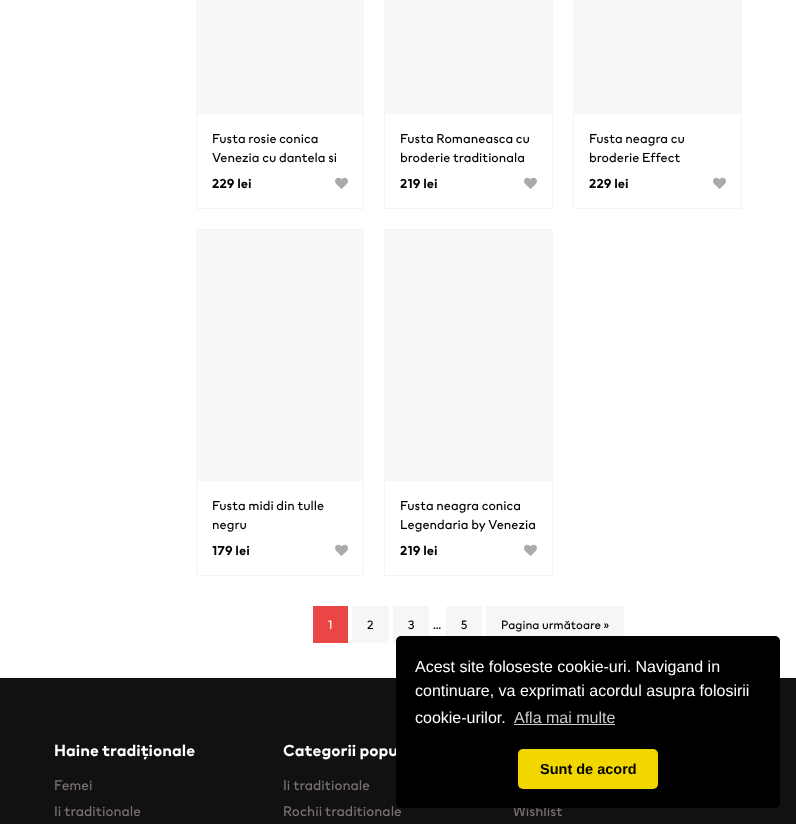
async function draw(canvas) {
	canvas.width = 796;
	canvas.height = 824;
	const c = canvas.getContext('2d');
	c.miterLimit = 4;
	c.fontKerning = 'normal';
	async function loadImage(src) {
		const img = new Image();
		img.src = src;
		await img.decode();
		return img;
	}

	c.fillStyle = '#fff';
	c.fillRect(0, 0, 796, 824);
	for (const [x, y, w, h, color] of [
		[197, 0, 166, 114, '#f7f7f7'],
		[363, 0, 1, 209, '#f4f4f4'],
		[196, 208, 168, 1, '#f4f4f4'],
		[196, 0, 1, 209, '#f4f4f4'],
	]) {
		c.fillStyle = color;
		c.fillRect(x, y, w, h);
	}
	c.font = '13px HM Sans';
	c.fillStyle = '#000';
	c.fillText('Fusta rosie conica', 212, 143);
	c.fillText('Venezia cu dantela si', 212, 162);
	c.font = 'bold 13px HM Sans';
	c.fillText('229 lei', 212, 188);
	c.drawImage(await loadImage('img1.png'), 335, 177, 13, 12);
	for (const [x, y, w, h, color] of [
		[385, 0, 167, 114, '#f7f7f7'],
		[552, 0, 1, 209, '#f4f4f4'],
		[384, 208, 169, 1, '#f4f4f4'],
		[384, 0, 1, 209, '#f4f4f4'],
	]) {
		c.fillStyle = color;
		c.fillRect(x, y, w, h);
	}
	c.font = '13px HM Sans';
	c.fillStyle = '#000';
	c.fillText('Fusta Romaneasca cu', 400, 143);
	c.fillText('broderie traditionala', 400, 162);
	c.font = 'bold 13px HM Sans';
	c.fillText('219 lei', 400, 188);
	c.drawImage(await loadImage('img1.png'), 524, 177, 13, 12);
	for (const [x, y, w, h, color] of [
		[574, 0, 167, 114, '#f7f7f7'],
		[741, 0, 1, 209, '#f4f4f4'],
		[573, 208, 169, 1, '#f4f4f4'],
		[573, 0, 1, 209, '#f4f4f4'],
	]) {
		c.fillStyle = color;
		c.fillRect(x, y, w, h);
	}
	c.font = '13px HM Sans';
	c.fillStyle = '#000';
	c.fillText('Fusta neagra cu', 589, 143);
	c.fillText('broderie Effect', 589, 162);
	c.font = 'bold 13px HM Sans';
	c.fillText('229 lei', 589, 188);
	c.drawImage(await loadImage('img1.png'), 713, 177, 13, 12);
	for (const [x, y, w, h, color] of [
		[196, 229, 168, 1, '#f4f4f4'],
		[363, 229, 1, 252, '#f4f4f4'],
		[196, 229, 1, 252, '#f4f4f4'],
		[197, 230, 166, 251, '#f7f7f7'],
		[363, 481, 1, 95, '#f4f4f4'],
		[196, 575, 168, 1, '#f4f4f4'],
		[196, 481, 1, 95, '#f4f4f4'],
	]) {
		c.fillStyle = color;
		c.fillRect(x, y, w, h);
	}
	c.font = '13px HM Sans';
	c.fillStyle = '#000';
	c.fillText('Fusta midi din tulle', 212, 510);
	c.fillText('negru', 212, 529);
	c.font = 'bold 13px HM Sans';
	c.fillText('179 lei', 212, 555);
	c.drawImage(await loadImage('img1.png'), 335, 544, 13, 12);
	for (const [x, y, w, h, color] of [
		[384, 229, 169, 1, '#f4f4f4'],
		[552, 229, 1, 252, '#f4f4f4'],
		[384, 229, 1, 252, '#f4f4f4'],
		[385, 230, 167, 251, '#f7f7f7'],
		[552, 481, 1, 95, '#f4f4f4'],
		[384, 575, 169, 1, '#f4f4f4'],
		[384, 481, 1, 95, '#f4f4f4'],
	]) {
		c.fillStyle = color;
		c.fillRect(x, y, w, h);
	}
	c.font = '13px HM Sans';
	c.fillStyle = '#000';
	c.fillText('Fusta neagra conica', 400, 510);
	c.fillText('Legendaria by Venezia', 400, 529);
	c.font = 'bold 13px HM Sans';
	c.fillText('219 lei', 400, 555);
	c.drawImage(await loadImage('img1.png'), 524, 544, 13, 12);
	c.fillStyle = '#ea4646';
	c.fillRect(313, 606, 35, 37);
	c.font = '12px HM Sans';
	c.fillStyle = '#fff';
	c.fillText('1', 328, 629);
	c.fillStyle = '#f6f6f6';
	c.fillRect(352, 606, 37, 37);
	c.fillStyle = '#000';
	c.fillText('2', 367, 629);
	c.fillStyle = '#f6f6f6';
	c.fillRect(393, 606, 36, 37);
	c.fillStyle = '#000';
	c.fillText('3', 408, 629);
	c.fillText('…', 433, 629);
	c.fillStyle = '#f6f6f6';
	c.fillRect(446, 606, 36, 30);
	c.fillStyle = '#000';
	c.fillText('5', 461, 629);
	c.fillStyle = '#f6f6f6';
	c.fillRect(486, 606, 138, 30);
	c.fillStyle = '#000';
	c.fillText('Pagina următoare »', 501, 629);
	c.fillStyle = '#111';
	c.fillRect(0, 678, 796, 146);
	c.font = 'bold 16px HM Sans';
	c.fillStyle = '#fff';
	c.fillText('Haine tradiționale', 54, 756);
	c.font = '14px HM Sans';
	c.fillStyle = '#797075';
	c.fillText('Femei', 54, 790);
	c.fillText('Ii traditionale', 54, 816);
	c.font = 'bold 16px HM Sans';
	c.fillStyle = '#fff';
	c.fillText('Categorii popu', 283, 756);
	c.font = '14px HM Sans';
	c.fillStyle = '#797075';
	for (const [text, x, y] of [
		['Ii traditionale', 283, 790],
		['Rochii traditionale', 283, 816],
		['Wishlist', 513, 816],
	]) {
		c.fillText(text, x, y);
	}
	c.fillStyle = '#000';
	c.beginPath();
	c.roundRect(396, 636, 384, 172, 5);
	c.fill();
	c.font = '16px Liberation Sans';
	c.fillStyle = '#fff';
	for (const [text, x, y] of [
		['Acest site foloseste cookie-uri. Navigand in', 415, 672],
		['continuare, va exprimati acordul asupra folosirii', 415, 696],
		['cookie-urilor.', 415, 723],
	]) {
		c.fillText(text, x, y);
	}
	c.fillStyle = '#ccc';
	c.fillText('Afla mai multe', 514, 723);
	c.fillRect(514, 724, 101, 1);
	c.fillStyle = '#f1d600';
	c.beginPath();
	c.roundRect(518, 749, 140, 40, 5);
	c.fill();
	c.font = 'bold 14.5px Liberation Sans';
	c.fillStyle = '#000';
	c.fillText('Sunt de acord', 540, 774);
}

draw(document.querySelector('canvas'));
